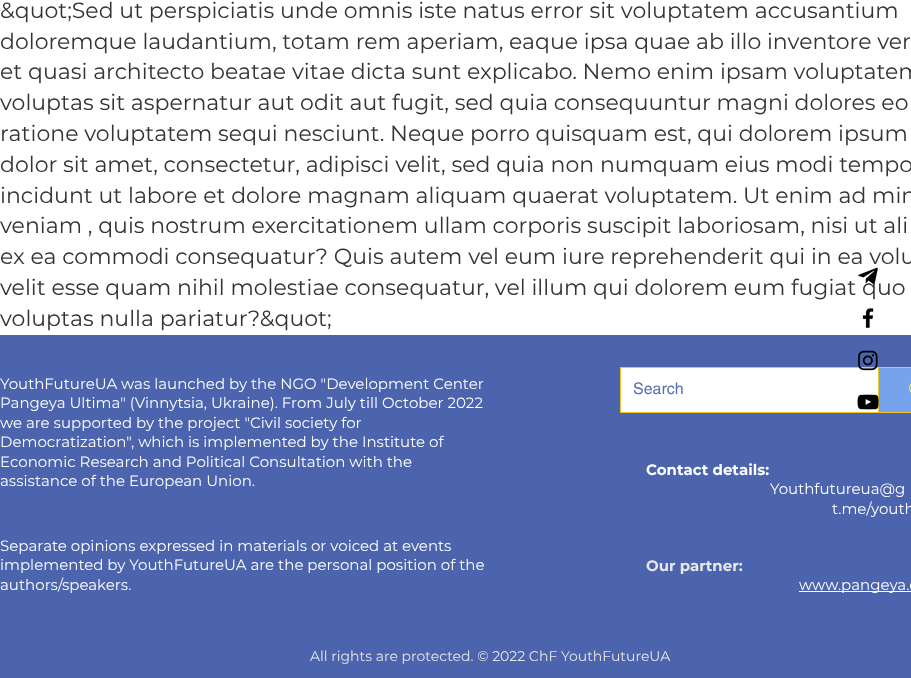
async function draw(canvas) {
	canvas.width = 911;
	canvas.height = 678;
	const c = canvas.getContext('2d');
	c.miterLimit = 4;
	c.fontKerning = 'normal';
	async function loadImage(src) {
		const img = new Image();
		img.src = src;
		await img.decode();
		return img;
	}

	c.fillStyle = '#fff';
	c.fillRect(0, 0, 911, 678);
	c.font = '22px Montserrat';
	c.fillStyle = '#333';
	for (const [text, x, y] of [
		['&quot;Sed ut perspiciatis unde omnis iste natus error sit voluptatem accusantium', 0, 18],
		['doloremque laudantium, totam rem aperiam, eaque ipsa quae ab illo inventore ver', 0, 49],
		['et quasi architecto beatae vitae dicta sunt explicabo. Nemo enim ipsam voluptatem', 0, 79],
		['voluptas sit aspernatur aut odit aut fugit, sed quia consequuntur magni dolores eo', 0, 110],
		['ratione voluptatem sequi nesciunt. Neque porro quisquam est, qui dolorem ipsum', 0, 141],
		['dolor sit amet, consectetur, adipisci velit, sed quia non numquam eius modi tempo', 0, 172],
		['incidunt ut labore et dolore magnam aliquam quaerat voluptatem. Ut enim ad min', 0, 203],
		['veniam , quis nostrum exercitationem ullam corporis suscipit laboriosam, nisi ut ali', 0, 233],
		['ex ea commodi consequatur? Quis autem vel eum iure reprehenderit qui in ea volu', 0, 264],
		['velit esse quam nihil molestiae consequatur, vel illum qui dolorem eum fugiat quo', 0, 295],
		['voluptas nulla pariatur?&quot;', 0, 326],
	]) {
		c.fillText(text, x, y);
	}
	c.drawImage(await loadImage('img1.png'), 858, 267, 20, 18);
	c.drawImage(await loadImage('img2.png'), 862, 308, 12, 20);
	c.fillStyle = '#4b64ad';
	c.fillRect(0, 335, 911, 343);
	c.strokeStyle = '#edc529';
	c.strokeRect(620.5, 367.5, 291, 45);
	c.fillStyle = '#fff';
	c.fillRect(621, 368, 257, 44);
	c.drawImage(await loadImage('img3.png'), 858, 350, 20, 21);
	c.fillStyle = '#edc529';
	c.fillRect(878, 368, 1, 44);
	c.drawImage(await loadImage('img4.png'), 857, 394, 22, 16);
	c.font = '15px Montserrat';
	c.fillStyle = '#fff';
	for (const [text, x, y] of [
		['YouthFutureUA was launched by the NGO "Development Center', 0, 389],
		['Pangeya Ultima" (Vinnytsia, Ukraine). From July till October 2022', 0, 408],
		['we are supported by the project "Civil society for', 0, 428],
		['Democratization", which is implemented by the Institute of', 0, 447],
		['Economic Research and Political Consultation with the', 0, 467],
		['assistance of the European Union.', 0, 486],
		['Separate opinions expressed in materials or voiced at events', 0, 551],
		['implemented by YouthFutureUA are the personal position of the', 0, 570],
		['authors/speakers.', 0, 590],
	]) {
		c.fillText(text, x, y);
	}
	c.font = '16px helvetica';
	c.fillStyle = '#566fb8';
	c.fillText('Search', 633, 394);
	c.fillStyle = '#76a3eb';
	c.fillRect(879, 368, 32, 44);
	c.drawImage(await loadImage('img5.png'), 909, 383, 2, 10);
	c.font = 'bold 15px Montserrat';
	c.fillStyle = '#fff';
	c.fillText('Contact details:', 646, 475);
	c.font = '15px Montserrat';
	c.fillText('Youthfutureua@g', 770, 494);
	c.fillText('t.me/youth', 832, 514);
	c.font = 'bold 15px Montserrat';
	c.fillStyle = '#e8e6e6';
	c.fillText('Our partner:', 646, 571);
	c.fillStyle = '#fff';
	c.fillRect(799, 591, 112, 1);
	c.font = '15px Montserrat';
	c.fillText('www.pangeya.c', 799, 590);
	c.font = '14px Montserrat';
	c.fillStyle = '#e8e6e6';
	c.fillText('All rights are protected. © 2022 ChF YouthFutureUA', 310, 661);
}

draw(document.querySelector('canvas'));
